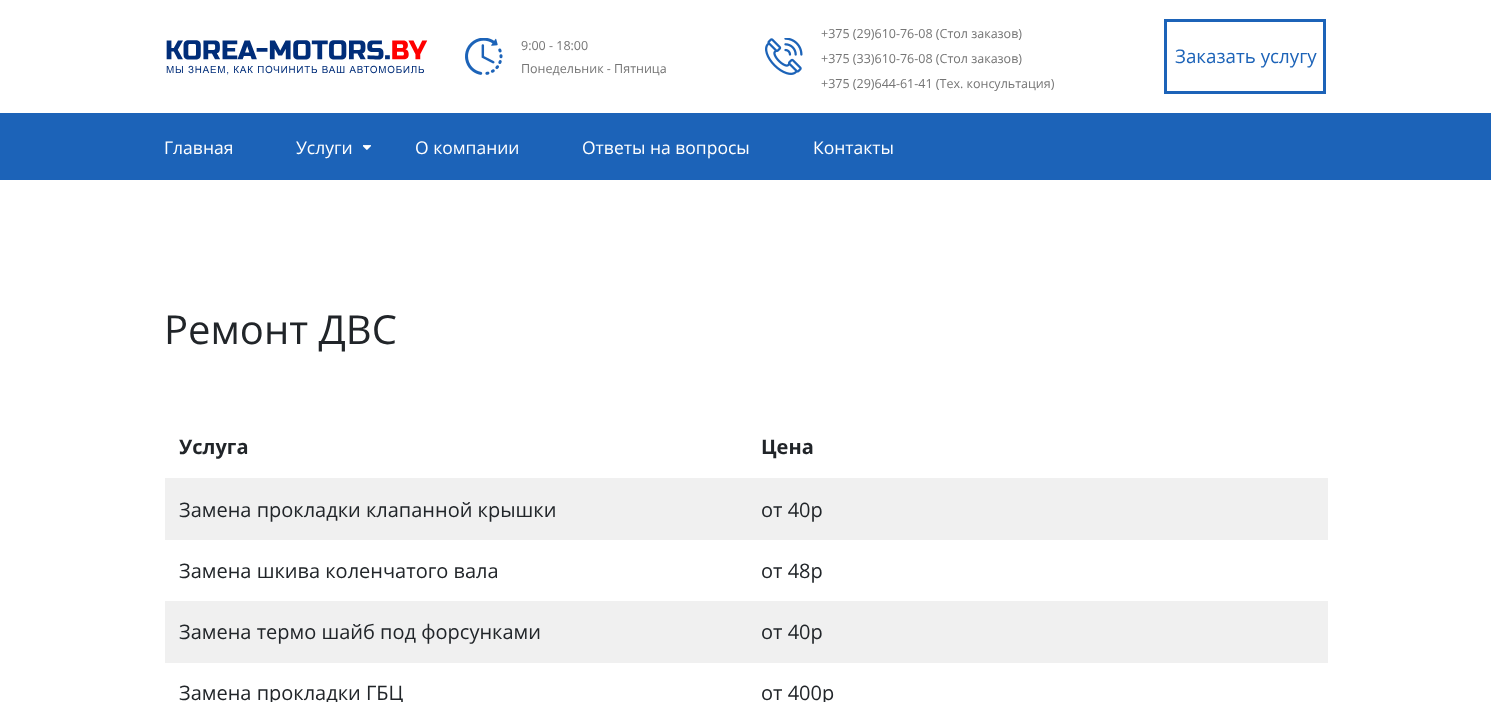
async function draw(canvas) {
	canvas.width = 1491;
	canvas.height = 702;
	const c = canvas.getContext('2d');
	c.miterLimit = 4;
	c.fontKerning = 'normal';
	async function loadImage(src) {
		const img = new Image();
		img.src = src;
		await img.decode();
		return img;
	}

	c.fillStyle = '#fff';
	c.fillRect(0, 0, 1491, 702);
	c.drawImage(await loadImage('img1.png'), 166, 40, 262, 35);
	c.drawImage(await loadImage('img2.png'), 465, 38, 38, 37);
	c.font = '12.5px Open Sans';
	c.fillStyle = '#757575';
	c.fillText('9:00 - 18:00', 521, 50);
	c.fillText('Понедельник - Пятница', 521, 73);
	c.drawImage(await loadImage('img3.png'), 765, 38, 38, 37);
	for (const [text, x, y] of [
		['+375 (29)610-76-08 (Стол заказов)', 821, 38],
		['+375 (33)610-76-08 (Стол заказов)', 821, 63],
		['+375 (29)644-61-41 (Тех. консультация)', 821, 88],
	]) {
		c.fillText(text, x, y);
	}
	c.strokeStyle = '#1c63b8';
	c.lineWidth = 3;
	c.strokeRect(1165.5, 20.5, 159, 72);
	c.font = '18.75px Open Sans';
	c.fillStyle = '#1c63b8';
	c.fillText('Заказать услугу', 1175, 63);
	c.fillRect(0, 113, 1491, 67);
	c.font = '17.5px Open Sans';
	c.fillStyle = '#fff';
	c.fillText('Главная', 164, 154);
	c.fillText('Услуги', 296, 154);
	c.drawImage(await loadImage('img4.png'), 363, 145, 8, 5);
	for (const [text, x, y] of [
		['О компании', 415, 154],
		['Ответы на вопросы', 582, 154],
		['Контакты', 813, 154],
	]) {
		c.fillText(text, x, y);
	}
	c.font = '40px Open Sans';
	c.fillStyle = '#212529';
	c.fillText('Ремонт ДВС', 164, 344);
	c.font = 'bold 20px Open Sans';
	c.fillText('Услуга', 179, 454);
	c.fillText('Цена', 761, 454);
	c.fillStyle = '#f0f0f0';
	c.fillRect(165, 478, 1163, 62);
	c.font = '20px Open Sans';
	c.fillStyle = '#212529';
	for (const [text, x, y] of [
		['Замена прокладки клапанной крышки', 179, 517],
		['от 40р', 761, 517],
		['Замена шкива коленчатого вала', 179, 578],
		['от 48р', 761, 578],
	]) {
		c.fillText(text, x, y);
	}
	c.fillStyle = '#f0f0f0';
	c.fillRect(165, 601, 1163, 62);
	c.fillStyle = '#212529';
	for (const [text, x, y] of [
		['Замена термо шайб под форсунками', 179, 639],
		['от 40р', 761, 639],
		['Замена прокладки ГБЦ', 179, 700],
		['от 400р', 761, 700],
	]) {
		c.fillText(text, x, y);
	}
}

draw(document.querySelector('canvas'));
